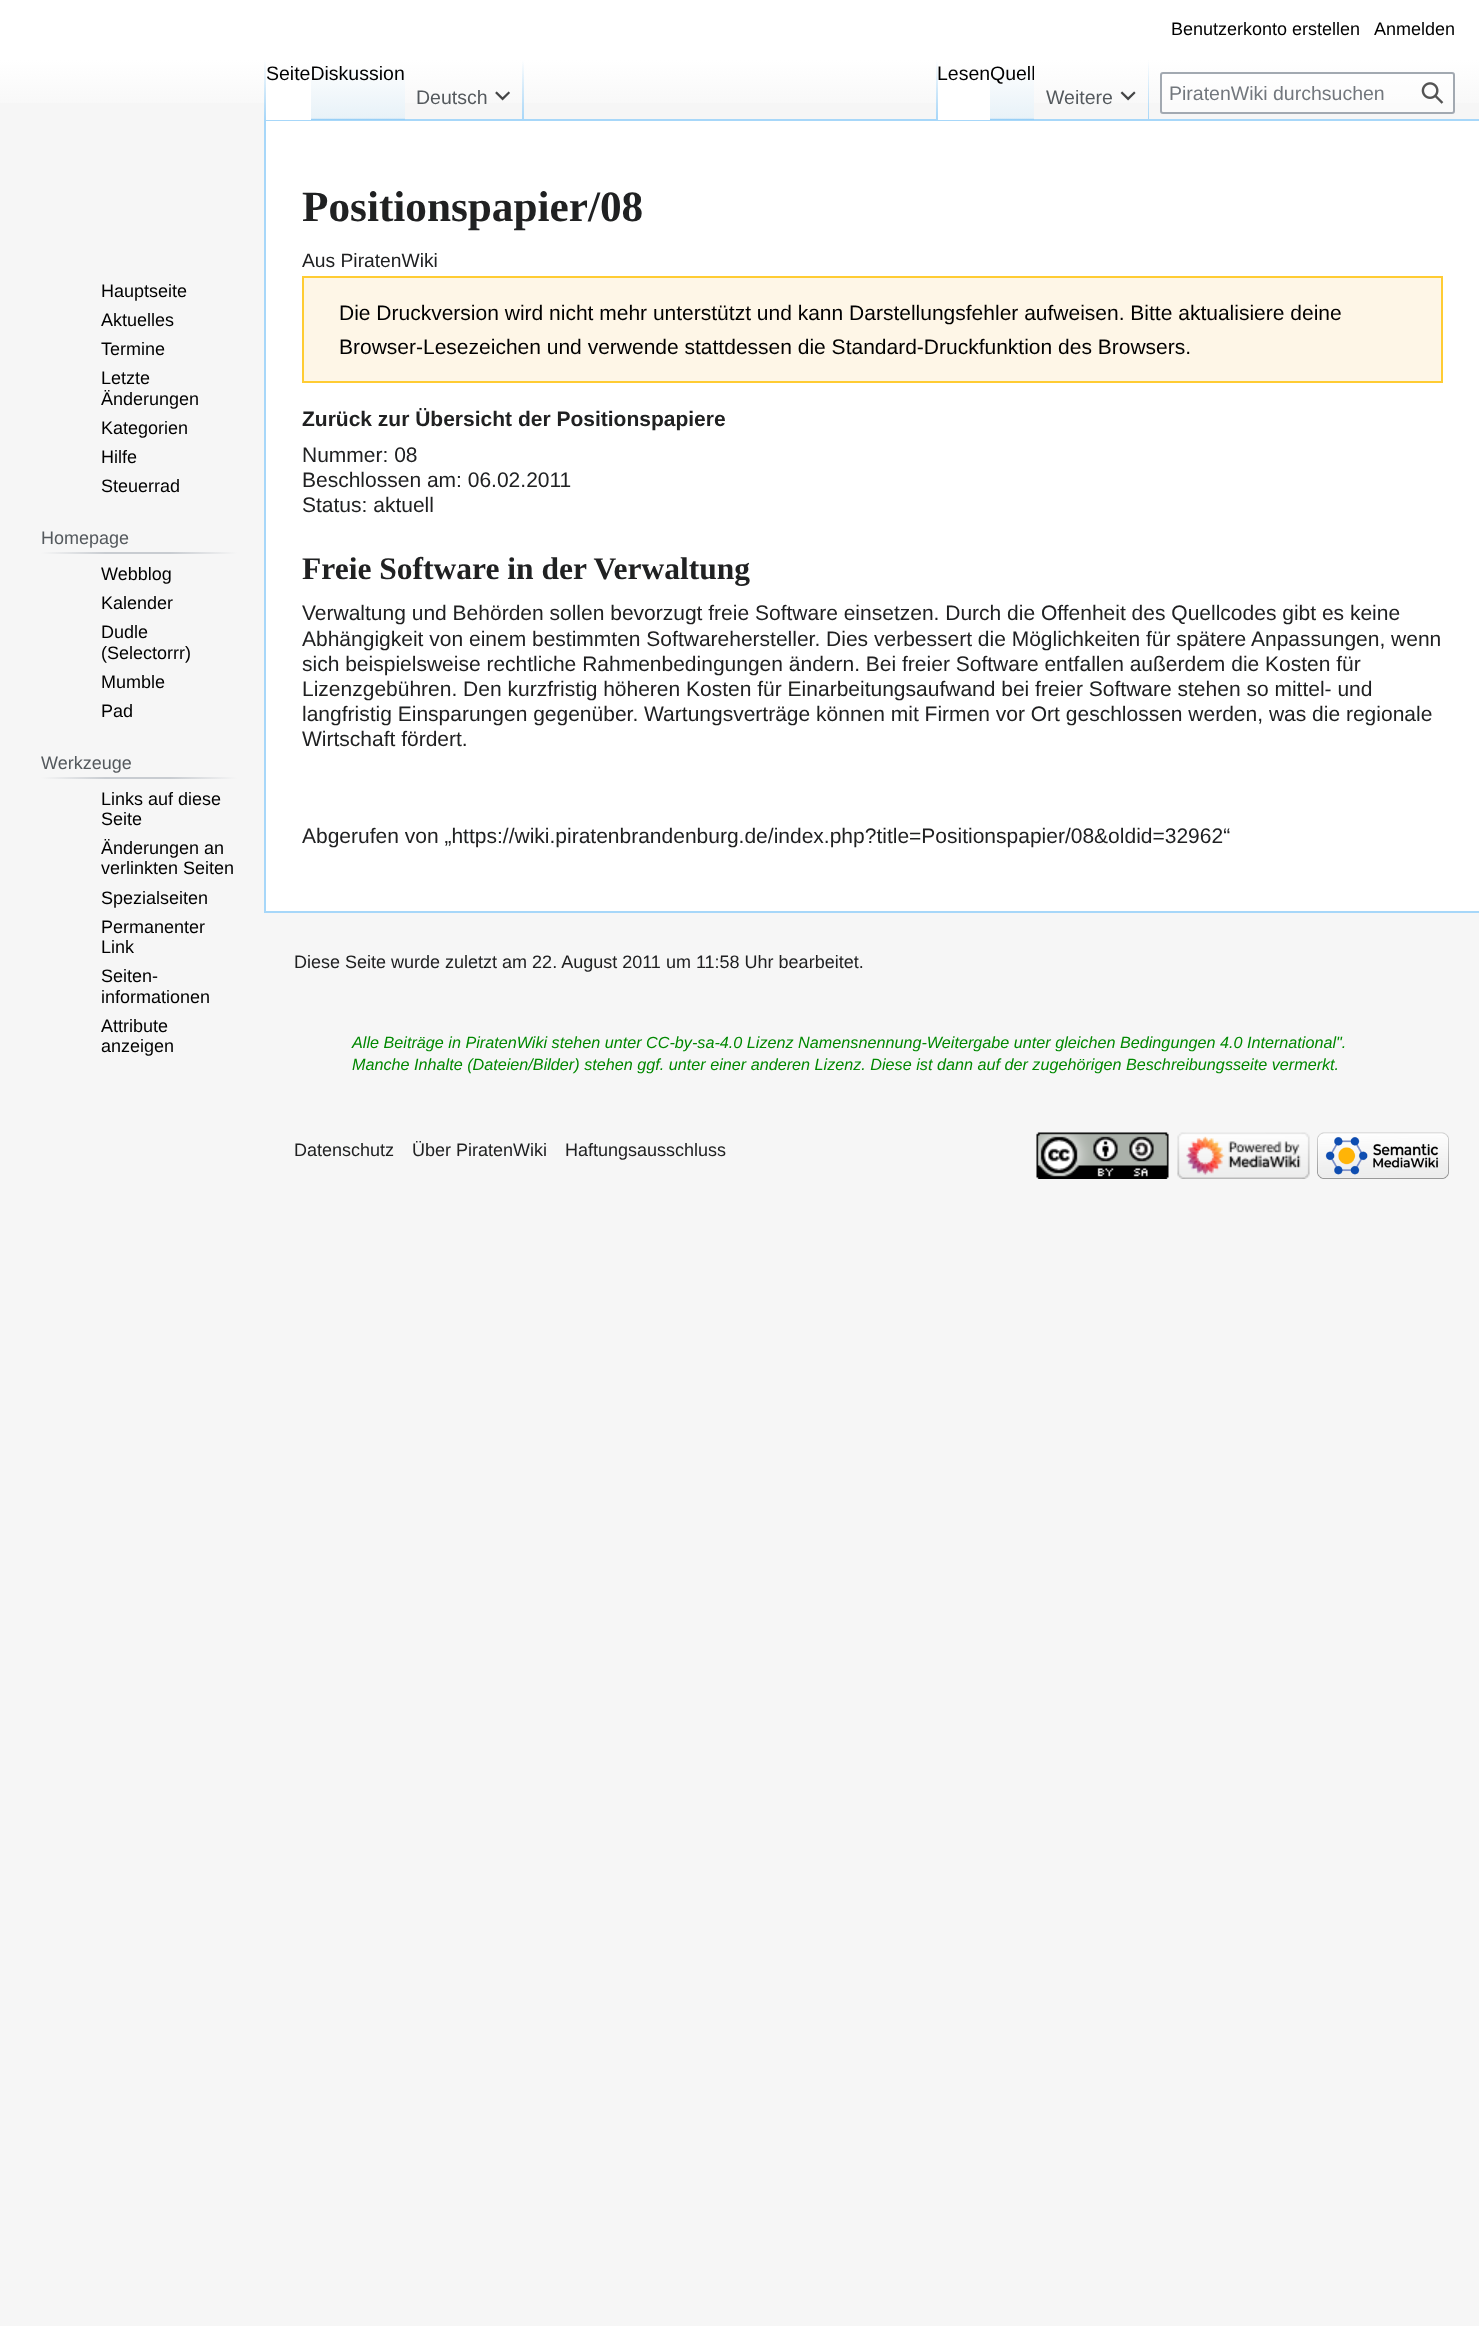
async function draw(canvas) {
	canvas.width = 1479;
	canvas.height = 2326;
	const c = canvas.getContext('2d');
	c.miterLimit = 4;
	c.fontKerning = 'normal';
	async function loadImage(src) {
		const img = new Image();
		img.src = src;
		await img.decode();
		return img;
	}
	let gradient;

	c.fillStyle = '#f6f6f6';
	c.fillRect(0, 0, 1479, 2326);
	gradient = c.createLinearGradient(740, 0, 740, 120);
	gradient.addColorStop(0.5, '#fff');
	gradient.addColorStop(1, '#f6f6f6');
	c.fillStyle = gradient;
	c.fillRect(0, 0, 1479, 103);
	c.font = '18px Liberation Sans';
	c.fillStyle = '#000';
	c.fillText('Benutzerkonto erstellen', 1171, 35);
	c.fillText('Anmelden', 1374, 35);
	for (const [x, y, w, h, color] of [
		[264, 119, 1215, 2, '#a7d7f9'],
		[264, 911, 1215, 2, '#a7d7f9'],
		[264, 119, 2, 793, '#a7d7f9'],
	]) {
		c.fillStyle = color;
		c.fillRect(x, y, w, h);
	}
	gradient = c.createLinearGradient(265, 60, 265, 120);
	gradient.addColorStop(0, '#a7d7f900');
	gradient.addColorStop(1, '#a7d7f9');
	c.fillStyle = gradient;
	c.fillRect(264, 60, 2, 60);
	c.fillStyle = '#fff';
	c.fillRect(266, 77, 45, 43);
	gradient = c.createLinearGradient(358, 120, 358, 60);
	gradient.addColorStop(0, '#77c1f6');
	gradient.addColorStop(0.03, '#e8f2f8');
	gradient.addColorStop(1, '#fff');
	c.fillStyle = gradient;
	c.fillRect(311, 69, 94, 51);
	c.font = '19.5px Liberation Sans';
	c.fillStyle = '#000';
	c.fillText('SeiteDiskussion', 266, 80);
	gradient = c.createLinearGradient(523, 60, 523, 120);
	gradient.addColorStop(0, '#a7d7f900');
	gradient.addColorStop(1, '#a7d7f9');
	c.fillStyle = gradient;
	c.fillRect(522, 60, 2, 60);
	c.fillStyle = '#54595d';
	c.fillText('Deutsch', 416, 104);
	c.drawImage(await loadImage('img1.png'), 495, 91, 15, 10);
	gradient = c.createLinearGradient(937, 60, 937, 120);
	gradient.addColorStop(0, '#a7d7f900');
	gradient.addColorStop(1, '#a7d7f9');
	c.fillStyle = gradient;
	c.fillRect(936, 60, 2, 60);
	c.fillStyle = '#fff';
	c.fillRect(938, 77, 52, 43);
	c.fillStyle = '#000';
	c.fillText('Lesen', 937, 80);
	gradient = c.createLinearGradient(1012, 120, 1012, 60);
	gradient.addColorStop(0, '#77c1f6');
	gradient.addColorStop(0.03, '#e8f2f8');
	gradient.addColorStop(1, '#fff');
	c.fillStyle = gradient;
	c.fillRect(990, 69, 44, 51);
	c.save();
	c.beginPath();
	c.rect(990, 60, 44, 60);
	c.clip();
	c.fillStyle = '#000';
	c.fillText('Quell', 990, 80);
	c.restore();
	gradient = c.createLinearGradient(1148, 60, 1148, 120);
	gradient.addColorStop(0, '#a7d7f900');
	gradient.addColorStop(1, '#a7d7f9');
	c.fillStyle = gradient;
	c.fillRect(1148, 60, 1, 60);
	c.fillStyle = '#54595d';
	c.fillText('Weitere', 1046, 104);
	c.drawImage(await loadImage('img2.png'), 1120, 91, 16, 10);
	c.fillStyle = '#ffffff80';
	c.beginPath();
	c.roundRect(1161, 73, 293, 40, 2);
	c.fill();
	c.strokeStyle = '#a2a9b1';
	c.lineWidth = 2;
	c.stroke();
	c.fillStyle = '#72777d';
	c.fillText('PiratenWiki durchsuchen', 1169, 100);
	c.drawImage(await loadImage('img3.png'), 1421, 82, 23, 22);
	c.font = '18px Liberation Sans';
	c.fillStyle = '#000';
	for (const [text, x, y] of [
		['Hauptseite', 101, 297],
		['Aktuelles', 101, 326],
		['Termine', 101, 355],
		['Letzte', 101, 384],
		['Änderungen', 101, 405],
		['Kategorien', 101, 434],
		['Hilfe', 101, 463],
		['Steuerrad', 101, 492],
	]) {
		c.fillText(text, x, y);
	}
	gradient = c.createLinearGradient(41, 553, 237, 553);
	gradient.addColorStop(0, '#f6f6f6');
	gradient.addColorStop(0.33, '#c8ccd1');
	gradient.addColorStop(0.66, '#c8ccd1');
	gradient.addColorStop(1, '#f6f6f6');
	c.fillStyle = gradient;
	c.fillRect(41, 552, 196, 2);
	c.fillStyle = '#54595d';
	c.fillText('Homepage', 41, 544);
	c.fillStyle = '#000';
	for (const [text, x, y] of [
		['Webblog', 101, 580],
		['Kalender', 101, 609],
		['Dudle', 101, 638],
		['(Selectorrr)', 101, 659],
		['Mumble', 101, 688],
		['Pad', 101, 717],
	]) {
		c.fillText(text, x, y);
	}
	gradient = c.createLinearGradient(41, 778, 237, 778);
	gradient.addColorStop(0, '#f6f6f6');
	gradient.addColorStop(0.33, '#c8ccd1');
	gradient.addColorStop(0.66, '#c8ccd1');
	gradient.addColorStop(1, '#f6f6f6');
	c.fillStyle = gradient;
	c.fillRect(41, 777, 196, 2);
	c.fillStyle = '#54595d';
	c.fillText('Werkzeuge', 41, 769);
	c.fillStyle = '#000';
	for (const [text, x, y] of [
		['Links auf diese', 101, 805],
		['Seite', 101, 825],
		['Änderungen an', 101, 854],
		['verlinkten Seiten', 101, 874],
		['Spezialseiten', 101, 904],
		['Permanenter', 101, 933],
		['Link', 101, 953],
		['Seiten-', 101, 982],
		['informationen', 101, 1003],
		['Attribute', 101, 1032],
		['anzeigen', 101, 1052],
	]) {
		c.fillText(text, x, y);
	}
	c.fillStyle = '#fff';
	c.fillRect(266, 121, 1213, 790);
	c.font = 'bold 43.25px Liberation Serif';
	c.fillStyle = '#202122';
	c.fillText('Positionspapier/08', 302, 221);
	c.font = '19.25px Liberation Sans';
	c.fillText('Aus PiratenWiki', 302, 267);
	c.fillStyle = '#fef6e7';
	c.beginPath();
	c.rect(303, 277, 1139, 105);
	c.fill();
	c.strokeStyle = '#fc3';
	c.stroke();
	c.font = '21px Liberation Sans';
	c.fillStyle = '#000';
	c.fillText('Die Druckversion wird nicht mehr unterstützt und kann Darstellungsfehler aufweisen. Bitte aktualisiere deine', 339, 320);
	c.fillText('Browser-Lesezeichen und verwende stattdessen die Standard-Druckfunktion des Browsers.', 339, 354);
	c.font = 'bold 21px Liberation Sans';
	c.fillStyle = '#202122';
	c.fillText('Zurück zur Übersicht der Positionspapiere', 302, 426);
	c.font = '21px Liberation Sans';
	for (const [text, x, y] of [
		['Nummer: 08', 302, 462],
		['Beschlossen am: 06.02.2011', 302, 487],
		['Status: aktuell', 302, 512],
	]) {
		c.fillText(text, x, y);
	}
	c.font = 'bold 31.5px Liberation Serif';
	c.fillText('Freie Software in der Verwaltung', 302, 579);
	c.font = '21px Liberation Sans';
	for (const [text, x, y] of [
		['Verwaltung und Behörden sollen bevorzugt freie Software einsetzen. Durch die Offenheit des Quellcodes gibt es keine', 302, 620],
		['Abhängigkeit von einem bestimmten Softwarehersteller. Dies verbessert die Möglichkeiten für spätere Anpassungen, wenn', 302, 646],
		['sich beispielsweise rechtliche Rahmenbedingungen ändern. Bei freier Software entfallen außerdem die Kosten für', 302, 671],
		['Lizenzgebühren. Den kurzfristig höheren Kosten für Einarbeitungsaufwand bei freier Software stehen so mittel- und', 302, 696],
		['langfristig Einsparungen gegenüber. Wartungsverträge können mit Firmen vor Ort geschlossen werden, was die regionale', 302, 721],
		['Wirtschaft fördert.', 302, 746],
		['Abgerufen von „https://wiki.piratenbrandenburg.de/index.php?title=Positionspapier/08&oldid=32962“', 302, 843],
	]) {
		c.fillText(text, x, y);
	}
	c.font = '18px Liberation Sans';
	c.fillText('Diese Seite wurde zuletzt am 22. August 2011 um 11:58 Uhr bearbeitet.', 294, 968);
	c.font = 'italic 16.2px Liberation Sans';
	c.fillStyle = '#080';
	c.fillText('Alle Beiträge in PiratenWiki stehen unter CC-by-sa-4.0 Lizenz Namensnennung-Weitergabe unter gleichen Bedingungen 4.0 International".', 352, 1048);
	c.fillText('Manche Inhalte (Dateien/Bilder) stehen ggf. unter einer anderen Lizenz. Diese ist dann auf der zugehörigen Beschreibungsseite vermerkt.', 352, 1070);
	c.font = '18px Liberation Sans';
	c.fillStyle = '#202122';
	for (const [text, x, y] of [
		['Datenschutz', 294, 1156],
		['Über PiratenWiki', 412, 1156],
		['Haftungsausschluss', 565, 1156],
	]) {
		c.fillText(text, x, y);
	}
	c.drawImage(await loadImage('img4.png'), 1036, 1132, 133, 47);
	c.drawImage(await loadImage('img5.png'), 1177, 1132, 133, 47);
	c.drawImage(await loadImage('img6.png'), 1317, 1132, 132, 47);
}

draw(document.querySelector('canvas'));
